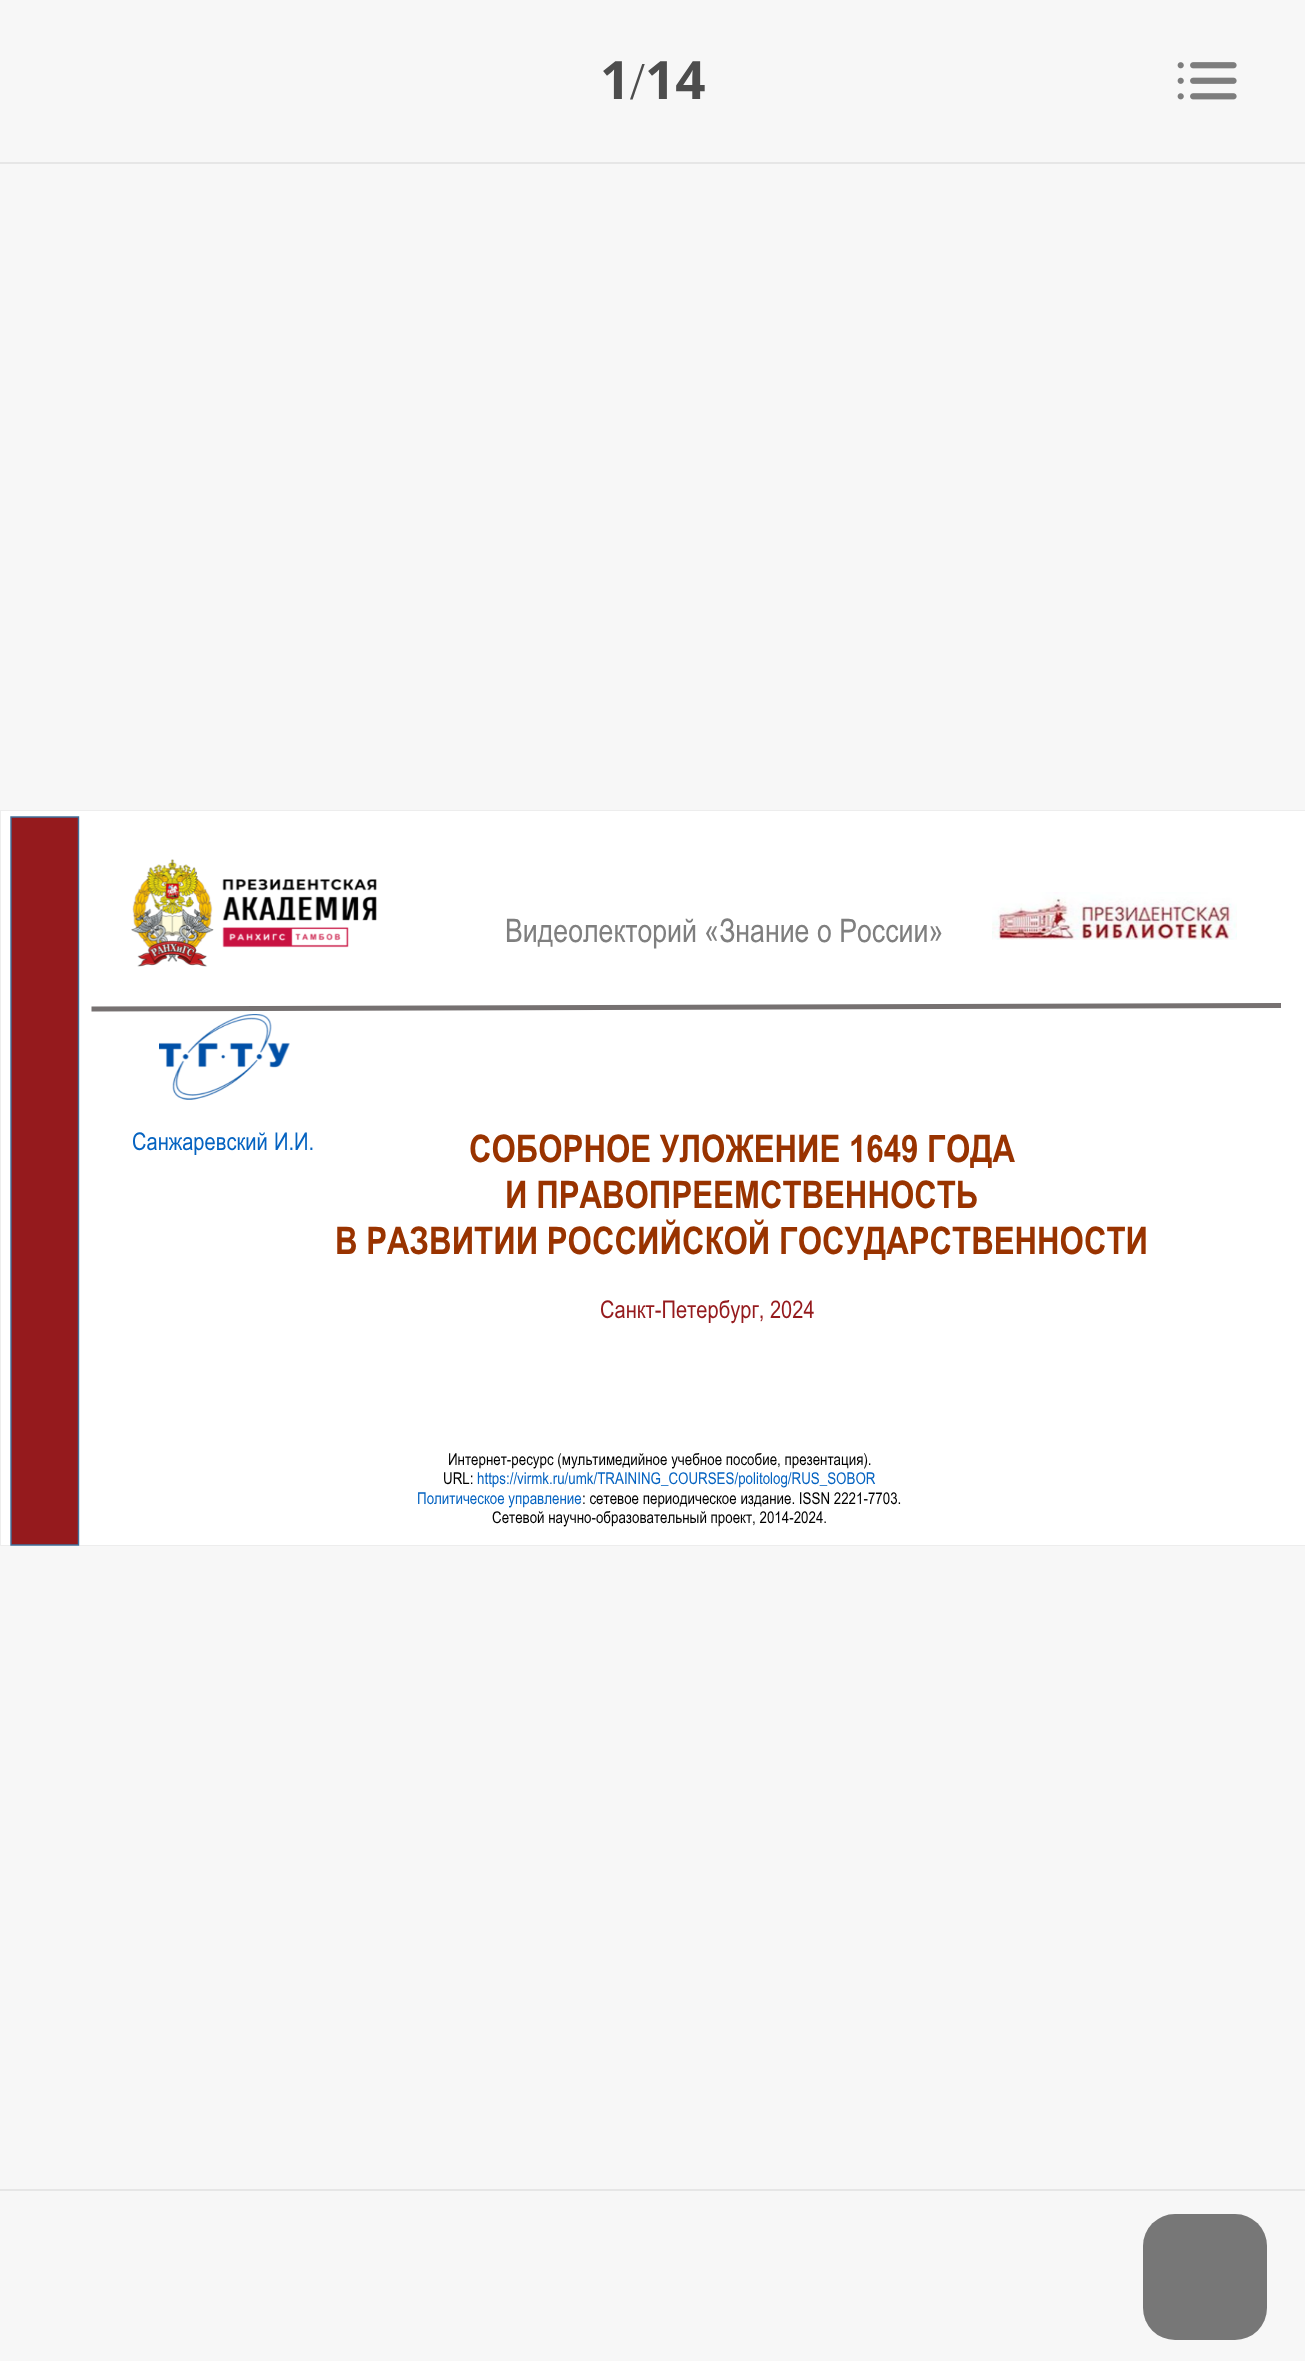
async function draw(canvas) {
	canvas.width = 1305;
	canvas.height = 2361;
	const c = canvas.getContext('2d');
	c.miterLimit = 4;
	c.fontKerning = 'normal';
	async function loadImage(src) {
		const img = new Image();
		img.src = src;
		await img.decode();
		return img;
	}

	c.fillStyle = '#f7f7f7';
	c.fillRect(0, 0, 1305, 2361);
	c.fillStyle = '#e6e6e6';
	c.beginPath();
	c.moveTo(0, 162);
	c.lineTo(0, 164);
	c.lineTo(1305, 164);
	c.lineTo(1305, 2);
	c.lineTo(1305, 162);
	c.closePath();
	c.fill();
	c.font = 'bold 53px "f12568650"';
	c.fillStyle = '#4d4d4d';
	c.fillText('1', 600, 99);
	c.font = '53px Liberation Serif';
	c.fillText('/', 630, 99);
	c.font = 'bold 53px "f12568650"';
	c.fillText('14', 645, 99);
	c.drawImage(await loadImage('img1.png'), 1177, 62, 60, 38);
	c.strokeStyle = '#ededed';
	c.strokeRect(0.5, 810.5, 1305, 735);
	c.fillStyle = '#fff';
	c.fillRect(1, 811, 1304, 734);
	c.fillStyle = '#951a1d';
	c.fillRect(11, 817, 67, 728);
	c.beginPath();
	c.moveTo(11, 817);
	c.lineTo(78.5, 817);
	c.lineTo(78.5, 1545);
	c.lineTo(11, 1545);
	c.closePath();
	c.strokeStyle = '#41719c';
	c.lineWidth = 1.4;
	c.stroke();
	c.drawImage(await loadImage('img2.png'), 131, 859, 246, 108);
	c.font = '32.6px Arial';
	c.fillStyle = '#7f7f7f';
	c.fillText('Видеолекторий «Знание о России»', 505, 942);
	c.drawImage(await loadImage('img3.png'), 992, 892, 245, 48);
	c.beginPath();
	c.moveTo(91.5, 1009);
	c.lineTo(1281, 1005.5);
	c.strokeStyle = '#767171';
	c.lineWidth = 4.8;
	c.stroke();
	c.drawImage(await loadImage('img4.png'), 159, 1014, 131, 86);
	c.font = '24.5px Arial';
	c.fillStyle = '#0563c1';
	c.fillText('Санжаревский', 132, 1150);
	c.fillText('И.И.', 274, 1150);
	c.font = 'bold 38.1px Arial';
	c.fillStyle = '#930';
	for (const [text, x, y] of [
		['СОБОРНОЕ УЛОЖЕНИЕ 1649 ГОДА', 469, 1162],
		['И ПРАВОПРЕЕМСТВЕННОСТЬ', 505, 1208],
		['В РАЗВИТИИ РОССИЙСКОЙ ГОСУДАРСТВЕННОСТИ', 335, 1254],
	]) {
		c.fillText(text, x, y);
	}
	c.font = '24.5px Arial';
	c.fillStyle = '#951a1d';
	c.fillText('Санкт-Петербург, 2024', 600, 1318);
	c.font = '16.3px Arial';
	c.fillStyle = '#000';
	c.fillText('Интернет-ресурс (мультимедийное учебное пособие, презентация).', 448, 1465);
	c.fillText('URL:', 443, 1484);
	c.fillStyle = '#0563c1';
	c.fillText('https://virmk.ru/umk/TRAINING_COURSES/politolog/RUS_SOBOR', 477, 1484);
	c.fillText('Политическое управление', 417, 1504);
	c.fillStyle = '#000';
	c.fillText(': сетевое периодическое издание. ISSN 2221-7703.', 582, 1504);
	c.fillText('Сетевой научно-образовательный проект, 2014-2024.', 492, 1523);
	c.fillStyle = '#e6e6e6';
	c.fillRect(0, 2189, 1305, 2);
	c.fillStyle = '#777';
	c.beginPath();
	c.roundRect(1143, 2214, 124, 126, 32);
	c.fill();
}

draw(document.querySelector('canvas'));
